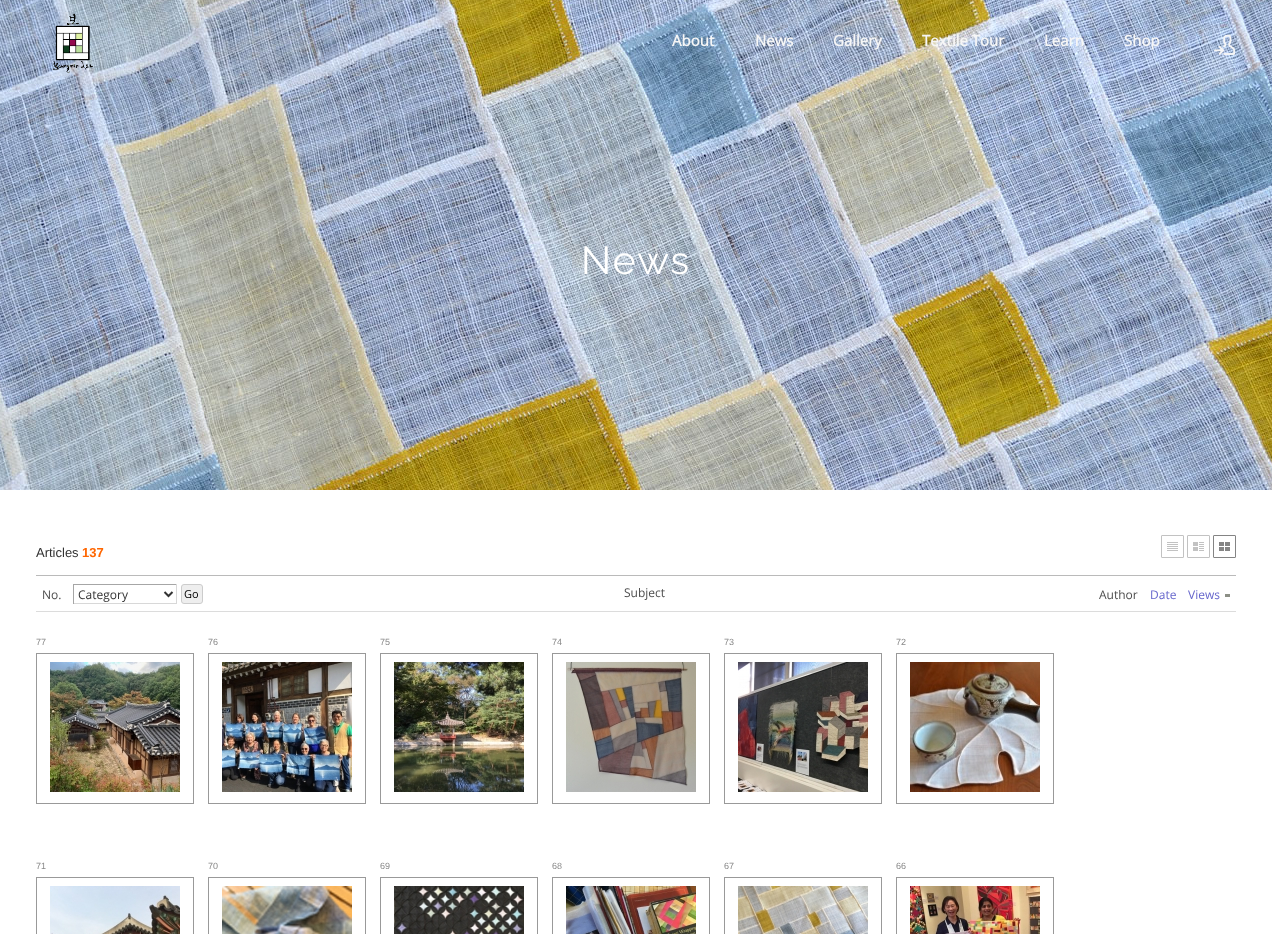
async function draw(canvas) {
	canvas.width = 1272;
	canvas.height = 934;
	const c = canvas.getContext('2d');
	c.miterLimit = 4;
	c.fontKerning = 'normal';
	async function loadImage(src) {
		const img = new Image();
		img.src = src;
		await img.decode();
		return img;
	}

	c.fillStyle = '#fff';
	c.fillRect(0, 0, 1272, 934);
	c.drawImage(await loadImage('img3.png'), 0, 0, 1272, 490);
	c.drawImage(await loadImage('img1.png'), 53, 13, 40, 60);
	c.font = 'bold 15px Open Sans';
	c.fillStyle = '#f6f6f6';
	for (const [text, x, y] of [
		['About', 672, 46],
		['News', 755, 46],
		['Gallery', 833, 46],
		['Textile Tour', 922, 46],
		['Learn', 1044, 46],
		['Shop', 1124, 46],
	]) {
		c.fillText(text, x, y);
	}
	c.drawImage(await loadImage('img2.png'), 1214, 34, 22, 21);
	c.letterSpacing = '2px';
	c.font = '39px Raleway';
	c.fillStyle = '#fff';
	c.fillText('News', 581, 274);
	c.letterSpacing = '0px';
	c.font = '13px Liberation Sans';
	c.fillStyle = '#333';
	c.fillText('Articles', 36, 557);
	c.font = 'bold 13px Liberation Sans';
	c.fillStyle = '#f60';
	c.fillText('137', 82, 557);
	c.drawImage(await loadImage('img4.png'), 1161, 535, 23, 23);
	c.drawImage(await loadImage('img5.png'), 1187, 535, 23, 23);
	c.drawImage(await loadImage('img6.png'), 1213, 535, 23, 23);
	c.fillStyle = '#bababa';
	c.fillRect(36, 575, 1200, 1);
	c.fillStyle = '#dcdcdc';
	c.fillRect(36, 611, 1200, 1);
	c.font = '12px Open Sans';
	c.fillStyle = '#4d4d4d';
	c.fillText('No.', 42, 599);
	for (const [x, y, w, h, color] of [
		[73, 584, 104, 1, '#a6a6a6'],
		[176, 584, 1, 20, '#d8d8d8'],
		[73, 603, 104, 1, '#d8d8d8'],
		[73, 584, 1, 20, '#a6a6a6'],
	]) {
		c.fillStyle = color;
		c.fillRect(x, y, w, h);
	}
	c.beginPath();
	c.moveTo(164.5, 592);
	c.lineTo(168.5, 596);
	c.lineTo(172.5, 592);
	c.strokeStyle = '#333';
	c.lineWidth = 2;
	c.stroke();
	c.fillStyle = '#333';
	c.fillText('Category', 78, 599);
	c.fillStyle = '#eee';
	c.beginPath();
	c.roundRect(181.5, 584.5, 21, 19, 2.5);
	c.fill();
	c.strokeStyle = '#ccc';
	c.lineWidth = 1;
	c.stroke();
	c.font = '11px Open Sans';
	c.fillStyle = '#000';
	c.fillText('Go', 184, 598);
	c.font = '12px Open Sans';
	c.fillStyle = '#4d4d4d';
	c.fillText('Subject', 624, 597);
	c.fillText('Author', 1099, 599);
	c.fillStyle = '#66c';
	c.fillText('Date', 1150, 599);
	c.fillText('Views', 1188, 599);
	c.fillStyle = '#8c8f86';
	c.fillRect(1225, 594, 5, 3);
	c.font = '9px Liberation Sans';
	c.fillStyle = '#888';
	c.fillText('77', 36, 645);
	c.strokeStyle = '#999';
	c.strokeRect(36.5, 653.5, 157, 150);
	c.drawImage(await loadImage('img7.png'), 50, 662, 130, 130);
	c.fillText('76', 208, 645);
	c.strokeRect(208.5, 653.5, 157, 150);
	c.drawImage(await loadImage('img8.png'), 222, 662, 130, 130);
	c.fillText('75', 380, 645);
	c.strokeRect(380.5, 653.5, 157, 150);
	c.drawImage(await loadImage('img9.png'), 394, 662, 130, 130);
	c.fillText('74', 552, 645);
	c.strokeRect(552.5, 653.5, 157, 150);
	c.drawImage(await loadImage('img10.png'), 566, 662, 130, 130);
	c.fillText('73', 724, 645);
	c.strokeRect(724.5, 653.5, 157, 150);
	c.drawImage(await loadImage('img11.png'), 738, 662, 130, 130);
	c.fillText('72', 896, 645);
	c.strokeRect(896.5, 653.5, 157, 150);
	c.drawImage(await loadImage('img12.png'), 910, 662, 130, 130);
	c.fillText('71', 36, 869);
	c.strokeRect(36.5, 877.5, 157, 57);
	c.drawImage(await loadImage('img13.png'), 50, 886, 130, 48);
	c.fillText('70', 208, 869);
	c.strokeRect(208.5, 877.5, 157, 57);
	c.drawImage(await loadImage('img14.png'), 222, 886, 130, 48);
	c.fillText('69', 380, 869);
	c.strokeRect(380.5, 877.5, 157, 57);
	c.drawImage(await loadImage('img15.png'), 394, 886, 130, 48);
	c.fillText('68', 552, 869);
	c.strokeRect(552.5, 877.5, 157, 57);
	c.drawImage(await loadImage('img16.png'), 566, 886, 130, 48);
	c.fillText('67', 724, 869);
	c.strokeRect(724.5, 877.5, 157, 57);
	c.drawImage(await loadImage('img17.png'), 738, 886, 130, 48);
	c.fillText('66', 896, 869);
	c.strokeRect(896.5, 877.5, 157, 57);
	c.drawImage(await loadImage('img18.png'), 910, 886, 130, 48);
}

draw(document.querySelector('canvas'));
